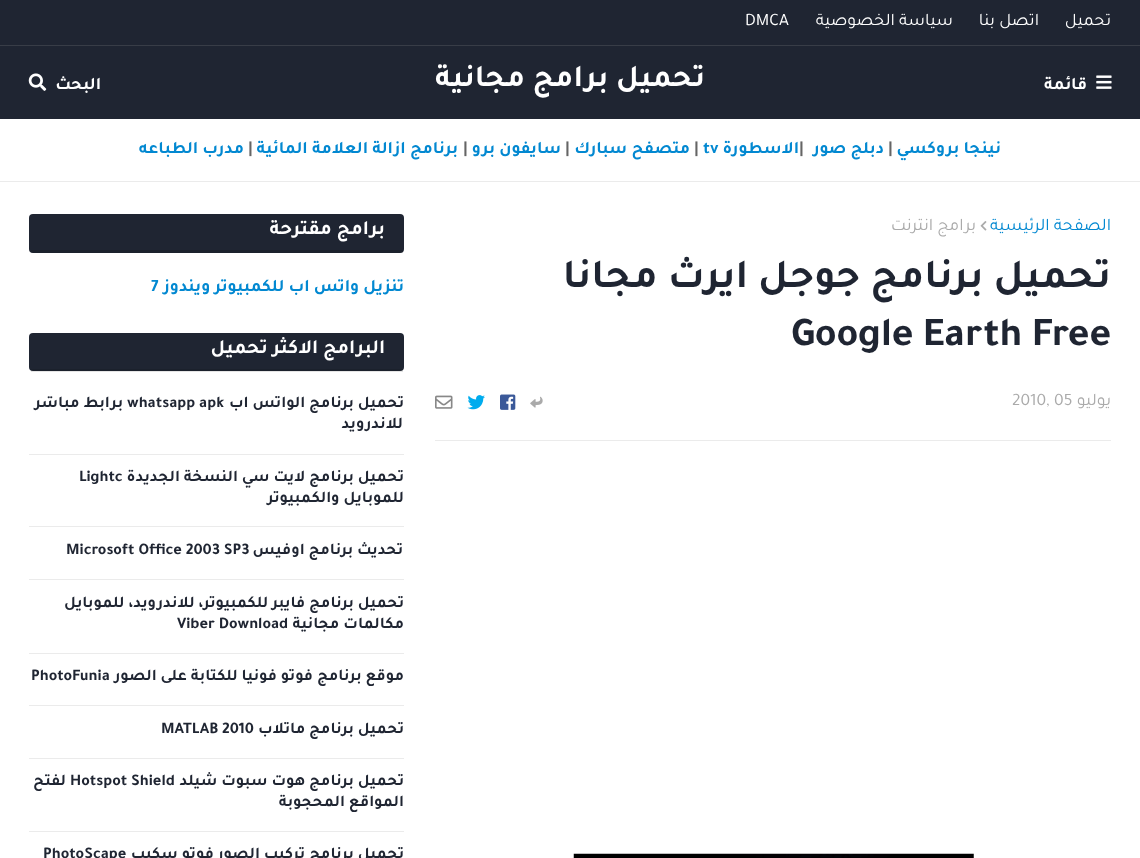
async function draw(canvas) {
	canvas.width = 1140;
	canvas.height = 858;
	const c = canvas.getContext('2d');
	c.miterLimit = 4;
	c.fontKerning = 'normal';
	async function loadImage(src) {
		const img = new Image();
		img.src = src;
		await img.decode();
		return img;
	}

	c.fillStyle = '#fff';
	c.fillRect(0, 0, 1140, 858);
	c.fillStyle = '#1f2532';
	c.fillRect(0, 0, 1140, 45);
	c.fillStyle = '#383d47';
	c.fillRect(0, 45, 1140, 1);
	c.direction = 'rtl';
	c.font = '17.5px Tajawal';
	c.fillStyle = '#fff';
	for (const [text, x, y] of [
		['تحميل', 1111, 25],
		['اتصل بنا', 1039, 25],
		['سياسة الخصوصية', 953, 25],
	]) {
		c.fillText(text, x, y);
	}
	c.direction = 'ltr';
	c.fillText('DMCA', 745, 25);
	c.fillStyle = '#1f2532';
	c.fillRect(0, 46, 1140, 73);
	c.drawImage(await loadImage('img1.png'), 1096, 75, 16, 14);
	c.direction = 'rtl';
	c.font = 'bold 17.5px Tajawal';
	c.fillStyle = '#fff';
	c.fillText('قائمة', 1087, 89);
	c.font = 'bold 31.25px Tajawal';
	c.fillText('تحميل برامج مجانية', 705, 86);
	c.font = 'bold 17.5px Tajawal';
	c.fillText('البحث', 101, 89);
	c.drawImage(await loadImage('img2.png'), 28, 73, 19, 18);
	c.fillStyle = '#ebebeb';
	c.fillRect(0, 181, 1140, 1);
	c.fillStyle = '#0288d1';
	c.fillText('نينجا بروكسي', 1001, 153);
	c.direction = 'ltr';
	c.fillStyle = '#656565';
	c.fillText('|', 888, 153);
	c.direction = 'rtl';
	c.fillStyle = '#0288d1';
	c.fillText('دبلج صور', 884, 153);
	c.direction = 'ltr';
	c.fillStyle = '#656565';
	c.fillText('|', 799, 153);
	c.direction = 'rtl';
	c.fillStyle = '#0288d1';
	c.fillText('الاسطورة', 799, 153);
	c.direction = 'ltr';
	c.fillText('tv', 703, 153);
	c.fillStyle = '#656565';
	c.fillText('|', 694, 153);
	c.direction = 'rtl';
	c.fillStyle = '#0288d1';
	c.fillText('متصفح سبارك', 690, 153);
	c.direction = 'ltr';
	c.fillStyle = '#656565';
	c.fillText('|', 565, 153);
	c.direction = 'rtl';
	c.fillStyle = '#0288d1';
	c.fillText('سايفون برو', 561, 153);
	c.direction = 'ltr';
	c.fillStyle = '#656565';
	c.fillText('|', 463, 153);
	c.direction = 'rtl';
	c.fillStyle = '#0288d1';
	c.fillText('برنامج ازالة العلامة المائية', 458, 153);
	c.direction = 'ltr';
	c.fillStyle = '#656565';
	c.fillText('|', 248, 153);
	c.direction = 'rtl';
	c.fillStyle = '#0288d1';
	c.fillText('مدرب الطباعه', 244, 153);
	c.fillStyle = '#ebebeb';
	c.fillRect(435, 440, 676, 1);
	c.font = '17.5px Tajawal';
	c.fillStyle = '#0288d1';
	c.fillText('الصفحة الرئيسية', 1111, 230);
	c.drawImage(await loadImage('img3.png'), 980, 221, 7, 10);
	c.fillStyle = '#aaa';
	c.fillText('برامج انترنت', 976, 230);
	c.font = 'bold 41.25px Tajawal';
	c.fillStyle = '#1f2532';
	c.fillText('تحميل برنامج جوجل ايرث مجانا', 1111, 287);
	c.direction = 'ltr';
	c.fillText('Google Earth Free', 791, 345);
	c.direction = 'rtl';
	c.font = '17.5px Tajawal';
	c.fillStyle = '#aaa';
	c.fillText('يوليو', 1111, 405);
	c.direction = 'ltr';
	c.fillText('2010, 05', 1012, 405);
	c.drawImage(await loadImage('img4.png'), 530, 396, 13, 12);
	c.drawImage(await loadImage('img5.png'), 500, 394, 16, 16);
	c.drawImage(await loadImage('img6.png'), 467, 395, 18, 15);
	c.drawImage(await loadImage('img7.png'), 435, 395, 18, 14);
	c.drawImage(await loadImage('img8.png'), 573, 853, 401, 5);
	c.fillStyle = '#1f2532';
	c.beginPath();
	c.roundRect(29, 214, 375, 39, 4);
	c.fill();
	c.fillStyle = '#0000001a';
	c.fillRect(31, 250, 372, 3);
	c.direction = 'rtl';
	c.font = 'bold 20px Tajawal';
	c.fillStyle = '#fff';
	c.fillText('برامج مقترحة', 385, 234);
	c.font = 'bold 17.5px Tajawal';
	c.fillStyle = '#0288d1';
	c.fillText('تنزيل واتس اب للكمبيوتر ويندوز', 404, 291);
	c.direction = 'ltr';
	c.fillText('7', 151, 291);
	c.fillStyle = '#1f2532';
	c.beginPath();
	c.roundRect(29, 333, 375, 38, 4);
	c.fill();
	c.fillStyle = '#0000001a';
	c.fillRect(31, 369, 372, 3);
	c.direction = 'rtl';
	c.font = 'bold 20px Tajawal';
	c.fillStyle = '#fff';
	c.fillText('البرامج الاكثر تحميل', 385, 353);
	c.font = 'bold 16.25px Tajawal';
	c.fillStyle = '#1f2532';
	c.fillText('تحميل برنامج الواتس اب', 404, 407);
	c.direction = 'ltr';
	c.fillText('whatsapp apk', 127, 407);
	c.save();
	c.beginPath();
	c.rect(29, 396, 375, 43);
	c.clip();
	c.direction = 'rtl';
	c.fillText('برابط مباشر', 123, 407);
	c.restore();
	c.direction = 'rtl';
	c.fillText('للاندرويد', 403, 428);
	c.fillStyle = '#ebebeb';
	c.fillRect(29, 454, 375, 1);
	c.fillStyle = '#1f2532';
	c.fillText('تحميل برنامج لايت سي النسخة الجديدة', 404, 481);
	c.direction = 'ltr';
	c.fillText('Lightc', 79, 481);
	c.direction = 'rtl';
	c.fillText('للموبايل والكمبيوتر', 404, 502);
	c.fillStyle = '#ebebeb';
	c.fillRect(29, 526, 375, 1);
	c.fillStyle = '#1f2532';
	c.fillText('تحديث برنامج اوفيس', 403, 554);
	c.direction = 'ltr';
	c.fillText('Microsoft Office 2003 SP3', 66, 554);
	c.fillStyle = '#ebebeb';
	c.fillRect(29, 579, 375, 1);
	c.direction = 'rtl';
	c.fillStyle = '#1f2532';
	c.fillText('تحميل برنامج فايبر للكمبيوتر، للاندرويد، للموبايل', 404, 607);
	c.fillText('مكالمات مجانية', 404, 628);
	c.direction = 'ltr';
	c.fillText('Viber Download', 177, 628);
	c.fillStyle = '#ebebeb';
	c.fillRect(29, 653, 375, 1);
	c.direction = 'rtl';
	c.fillStyle = '#1f2532';
	c.fillText('موقع برنامج فوتو فونيا للكتابة على الصور', 404, 680);
	c.direction = 'ltr';
	c.fillText('PhotoFunia', 31, 680);
	c.fillStyle = '#ebebeb';
	c.fillRect(29, 705, 375, 1);
	c.direction = 'rtl';
	c.fillStyle = '#1f2532';
	c.fillText('تحميل برنامج ماتلاب', 404, 733);
	c.direction = 'ltr';
	c.fillText('MATLAB 2010', 161, 733);
	c.fillStyle = '#ebebeb';
	c.fillRect(29, 758, 375, 1);
	c.direction = 'rtl';
	c.fillStyle = '#1f2532';
	c.fillText('تحميل برنامج هوت سبوت شيلد', 404, 785);
	c.direction = 'ltr';
	c.fillText('Hotspot Shield', 70, 785);
	c.direction = 'rtl';
	c.fillText('لفتح', 66, 785);
	c.fillText('المواقع المحجوبة', 404, 806);
	c.fillStyle = '#ebebeb';
	c.fillRect(29, 831, 375, 1);
	c.fillStyle = '#1f2532';
	c.fillText('تحميل برنامج تركيب الصور فوتو سكيب', 404, 858);
	c.direction = 'ltr';
	c.fillText('PhotoScape', 43, 858);
}

draw(document.querySelector('canvas'));
